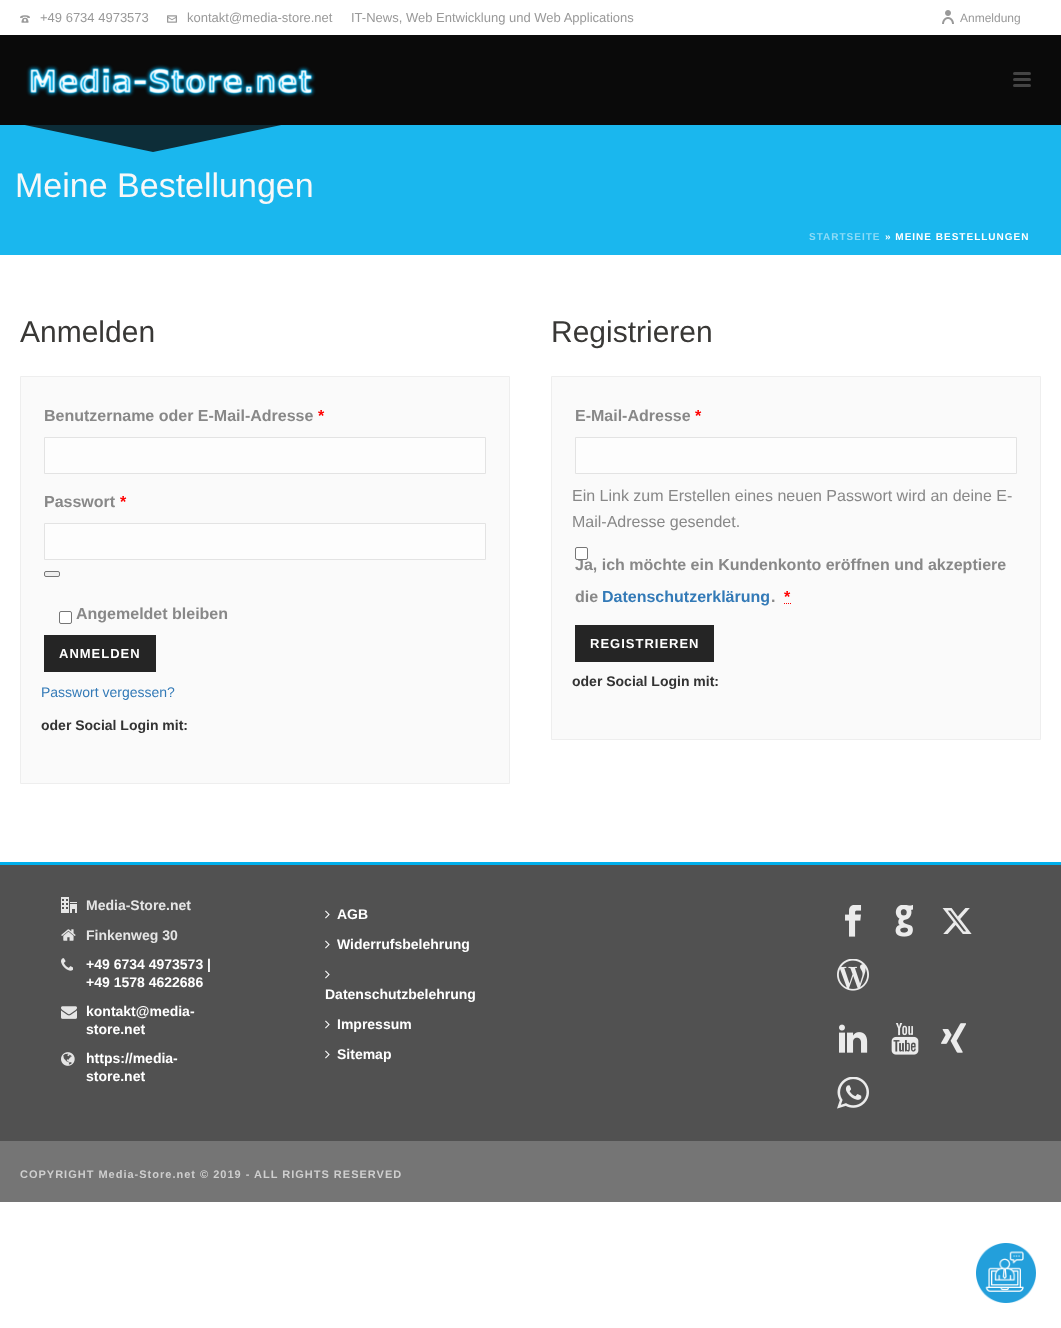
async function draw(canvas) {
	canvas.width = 1061;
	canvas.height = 1328;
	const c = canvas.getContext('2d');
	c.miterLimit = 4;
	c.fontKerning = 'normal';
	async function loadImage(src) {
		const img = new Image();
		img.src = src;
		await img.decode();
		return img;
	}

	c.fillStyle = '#fff';
	c.fillRect(0, 0, 1061, 1328);
	c.fillStyle = '#1ab7ee';
	c.fillRect(0, 125, 1061, 130);
	c.drawImage(await loadImage('img1.png'), 20, 15, 10, 8);
	c.font = '13px Liberation Sans';
	c.fillStyle = '#999';
	c.fillText('+49 6734 4973573', 40, 22);
	c.drawImage(await loadImage('img2.png'), 167, 15, 10, 8);
	c.fillText('kontakt@media-store.net', 187, 22);
	c.fillText('IT-News, Web Entwicklung und Web Applications', 351, 22);
	c.drawImage(await loadImage('img3.png'), 942, 10, 12, 14);
	c.font = '12px Liberation Sans';
	c.fillText('Anmeldung', 960, 22);
	c.fillStyle = '#0a0a0a';
	c.fillRect(0, 35, 1061, 90);
	c.drawImage(await loadImage('img4.png'), 26, 64, 290, 34);
	c.fillStyle = '#0a0a0acc';
	c.beginPath();
	c.moveTo(20, 124);
	c.lineTo(286, 124);
	c.lineTo(153, 152);
	c.closePath();
	c.fill();
	c.fillStyle = '#444';
	c.beginPath();
	c.roundRect(1013, 72, 18, 3, 1.5);
	c.fill();
	c.beginPath();
	c.roundRect(1013, 78, 18, 3, 1.5);
	c.fill();
	c.beginPath();
	c.roundRect(1013, 84, 18, 3, 1.5);
	c.fill();
	c.font = '34px Liberation Sans';
	c.fillStyle = '#f8f8f8';
	c.fillText('Meine Bestellungen', 15, 197);
	c.letterSpacing = '1px';
	c.font = 'bold 10px Liberation Sans';
	c.fillStyle = '#8ddbf7';
	c.fillText('STARTSEITE', 809, 240);
	c.fillStyle = '#fff';
	c.fillText('» MEINE BESTELLUNGEN', 885, 240);
	c.letterSpacing = '0px';
	c.font = '30px Liberation Sans';
	c.fillStyle = '#393836';
	c.fillText('Anmelden', 20, 342);
	c.fillStyle = '#fafafa';
	c.beginPath();
	c.rect(20.5, 376.5, 489, 407);
	c.fill();
	c.strokeStyle = '#eee';
	c.stroke();
	c.font = 'bold 16px Liberation Sans';
	c.fillStyle = '#888';
	c.fillText('Benutzername oder E-Mail-Adresse', 44, 421);
	c.fillStyle = '#f00';
	c.fillText('*', 318, 421);
	c.fillStyle = '#fdfdfd';
	c.beginPath();
	c.rect(44.5, 437.5, 441, 36);
	c.fill();
	c.strokeStyle = '#e3e3e3';
	c.stroke();
	c.fillStyle = '#888';
	c.fillText('Passwort', 44, 507);
	c.fillStyle = '#f00';
	c.fillText('*', 120, 507);
	c.fillStyle = '#fdfdfd';
	c.beginPath();
	c.rect(44.5, 523.5, 441, 36);
	c.fill();
	c.stroke();
	c.fillStyle = '#efefef';
	c.beginPath();
	c.roundRect(44.5, 571.5, 15, 5, 1.5);
	c.fill();
	c.strokeStyle = '#767676';
	c.stroke();
	c.fillStyle = '#fff';
	c.beginPath();
	c.roundRect(59.5, 611.5, 12, 12, 1.5);
	c.fill();
	c.stroke();
	c.fillStyle = '#888';
	c.fillText('Angemeldet bleiben', 76, 619);
	c.fillStyle = '#252525';
	c.fillRect(44, 635, 112, 37);
	c.letterSpacing = '1px';
	c.font = 'bold 13px Liberation Sans';
	c.fillStyle = '#fff';
	c.fillText('ANMELDEN', 59, 658);
	c.letterSpacing = '0px';
	c.font = '14px Liberation Sans';
	c.fillStyle = '#337ab7';
	c.fillText('Passwort vergessen?', 41, 697);
	c.font = 'bold 14px Liberation Sans';
	c.fillStyle = '#333';
	c.fillText('oder Social Login mit:', 41, 730);
	c.font = '30px Liberation Sans';
	c.fillStyle = '#393836';
	c.fillText('Registrieren', 551, 342);
	c.fillStyle = '#fafafa';
	c.beginPath();
	c.rect(551.5, 376.5, 489, 363);
	c.fill();
	c.strokeStyle = '#eee';
	c.stroke();
	c.font = 'bold 16px Liberation Sans';
	c.fillStyle = '#888';
	c.fillText('E-Mail-Adresse', 575, 421);
	c.fillStyle = '#f00';
	c.fillText('*', 695, 421);
	c.fillStyle = '#fdfdfd';
	c.beginPath();
	c.rect(575.5, 437.5, 441, 36);
	c.fill();
	c.strokeStyle = '#e3e3e3';
	c.stroke();
	c.font = '16px Liberation Sans';
	c.fillStyle = '#888';
	c.fillText('Ein Link zum Erstellen eines neuen Passwort wird an deine E-', 572, 501);
	c.fillText('Mail-Adresse gesendet.', 572, 527);
	c.font = 'bold 16px Liberation Sans';
	c.fillText('Ja, ich möchte ein Kundenkonto eröffnen und akzeptiere', 575, 570);
	c.fillStyle = '#fff';
	c.beginPath();
	c.roundRect(575.5, 547.5, 12, 12, 1.5);
	c.fill();
	c.strokeStyle = '#767676';
	c.stroke();
	c.fillStyle = '#888';
	c.fillText('die', 575, 602);
	c.fillStyle = '#337ab7';
	c.fillText('Datenschutzerklärung', 602, 602);
	c.letterSpacing = '2px';
	c.fillStyle = '#f00';
	c.fillText('*', 784, 602);
	c.beginPath();
	c.moveTo(784, 603.5);
	c.lineTo(791.5, 603.5);
	c.strokeStyle = '#f00';
	c.setLineDash([1, 1]);
	c.stroke();
	c.letterSpacing = '0px';
	c.fillStyle = '#888';
	c.fillText('.', 771, 602);
	c.fillStyle = '#252525';
	c.fillRect(575, 625, 139, 37);
	c.letterSpacing = '1px';
	c.font = 'bold 13px Liberation Sans';
	c.fillStyle = '#fff';
	c.fillText('REGISTRIEREN', 590, 648);
	c.letterSpacing = '0px';
	c.font = 'bold 14px Liberation Sans';
	c.fillStyle = '#333';
	c.fillText('oder Social Login mit:', 572, 686);
	c.fillStyle = '#515151';
	c.fillRect(0, 865, 1061, 276);
	c.fillStyle = '#00afec';
	c.fillRect(0, 862, 1061, 3);
	c.drawImage(await loadImage('img5.png'), 61, 897, 16, 16);
	c.fillStyle = '#e5e5e5';
	c.fillText('Media-Store.net', 86, 910);
	c.drawImage(await loadImage('img6.png'), 61, 929, 15, 12);
	c.fillText('Finkenweg 30', 86, 940);
	c.drawImage(await loadImage('img7.png'), 61, 958, 12, 13);
	c.fillStyle = '#fff';
	c.fillText('+49 6734 4973573 |', 86, 969);
	c.fillText('+49 1578 4622686', 86, 987);
	c.drawImage(await loadImage('img8.png'), 61, 1006, 16, 13);
	c.fillText('kontakt@media-', 86, 1016);
	c.fillText('store.net', 86, 1034);
	c.drawImage(await loadImage('img9.png'), 61, 1052, 14, 14);
	c.fillText('https://media-', 86, 1063);
	c.fillText('store.net', 86, 1081);
	c.drawImage(await loadImage('img10.png'), 325, 910, 5, 9);
	c.fillText('AGB', 337, 919);
	c.drawImage(await loadImage('img10.png'), 325, 940, 5, 9);
	c.fillText('Widerrufsbelehrung', 337, 949);
	c.drawImage(await loadImage('img10.png'), 325, 970, 5, 9);
	c.fillText('Datenschutzbelehrung', 325, 999);
	c.drawImage(await loadImage('img10.png'), 325, 1020, 5, 9);
	c.fillText('Impressum', 337, 1029);
	c.drawImage(await loadImage('img10.png'), 325, 1050, 5, 9);
	c.fillText('Sitemap', 337, 1059);
	c.drawImage(await loadImage('img11.png'), 845, 905, 17, 32);
	c.drawImage(await loadImage('img12.png'), 895, 905, 18, 32);
	c.drawImage(await loadImage('img13.png'), 942, 908, 30, 26);
	c.drawImage(await loadImage('img14.png'), 837, 959, 32, 32);
	c.drawImage(await loadImage('img15.png'), 839, 1024, 29, 29);
	c.drawImage(await loadImage('img16.png'), 891, 1023, 28, 32);
	c.drawImage(await loadImage('img17.png'), 941, 1023, 25, 30);
	c.drawImage(await loadImage('img18.png'), 837, 1077, 32, 32);
	c.fillStyle = '#757575';
	c.fillRect(0, 1141, 1061, 61);
	c.letterSpacing = '1px';
	c.font = 'bold 11px Liberation Sans';
	c.fillStyle = '#cfcfcf';
	c.fillText('COPYRIGHT Media-Store.net © 2019 - ALL RIGHTS RESERVED', 20, 1178);
	c.drawImage(await loadImage('img19.png'), 976, 1243, 60, 60);
}

draw(document.querySelector('canvas'));
